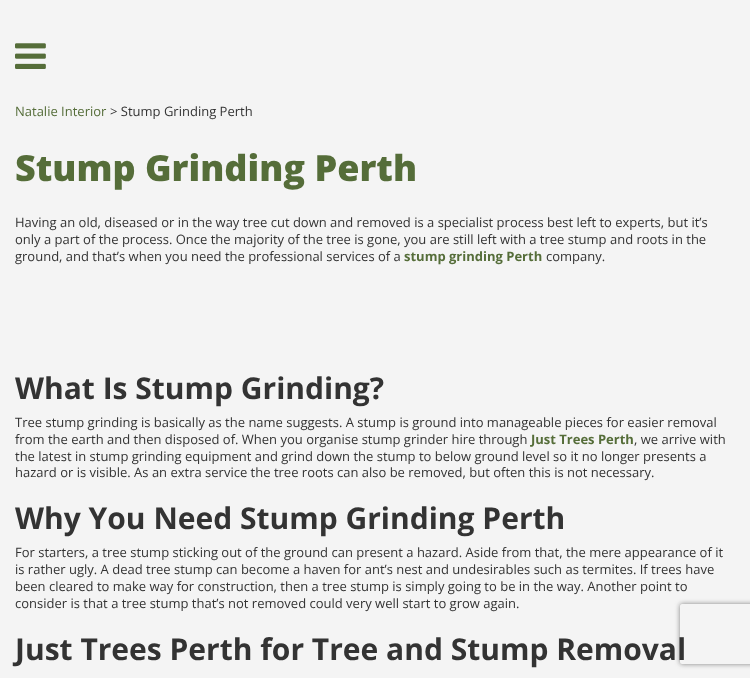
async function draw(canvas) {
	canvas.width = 750;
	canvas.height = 678;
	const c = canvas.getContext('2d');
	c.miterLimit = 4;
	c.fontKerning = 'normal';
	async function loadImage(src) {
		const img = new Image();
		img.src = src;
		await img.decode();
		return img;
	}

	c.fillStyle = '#f4f4f4';
	c.fillRect(0, 0, 750, 678);
	c.drawImage(await loadImage('img1.png'), 15, 43, 31, 26);
	c.font = '13px Open Sans';
	c.fillStyle = '#556d39';
	c.fillText('Natalie Interior', 15, 116);
	c.fillStyle = '#333';
	c.fillText('> Stump Grinding Perth', 110, 116);
	c.font = '800 36px Open Sans';
	c.fillStyle = '#556d39';
	c.fillText('Stump Grinding Perth', 15, 181);
	c.font = '13px Open Sans';
	c.fillStyle = '#333';
	for (const [text, x, y] of [
		['Having an old, diseased or in the way tree cut down and removed is a specialist process best left to experts, but it’s', 15, 227],
		['only a part of the process. Once the majority of the tree is gone, you are still left with a tree stump and roots in the', 15, 244],
		['ground, and that’s when you need the professional services of a', 15, 261],
	]) {
		c.fillText(text, x, y);
	}
	c.font = 'bold 13px Open Sans';
	c.fillStyle = '#556d39';
	c.fillText('stump grinding Perth', 404, 261);
	c.font = '13px Open Sans';
	c.fillStyle = '#333';
	c.fillText('company.', 546, 261);
	c.font = 'bold 30px Open Sans';
	c.fillText('What Is Stump Grinding?', 15, 399);
	c.font = '13px Open Sans';
	c.fillText('Tree stump grinding is basically as the name suggests. A stump is ground into manageable pieces for easier removal', 15, 427);
	c.fillText('from the earth and then disposed of. When you organise stump grinder hire through', 15, 444);
	c.font = 'bold 13px Open Sans';
	c.fillStyle = '#556d39';
	c.fillText('Just Trees Perth', 531, 444);
	c.font = '13px Open Sans';
	c.fillStyle = '#333';
	for (const [text, x, y] of [
		[', we arrive with', 634, 444],
		['the latest in stump grinding equipment and grind down the stump to below ground level so it no longer presents a', 15, 461],
		['hazard or is visible. As an extra service the tree roots can also be removed, but often this is not necessary.', 15, 477],
	]) {
		c.fillText(text, x, y);
	}
	c.font = 'bold 30px Open Sans';
	c.fillText('Why You Need Stump Grinding Perth', 15, 529);
	c.font = '13px Open Sans';
	for (const [text, x, y] of [
		['For starters, a tree stump sticking out of the ground can present a hazard. Aside from that, the mere appearance of it', 15, 557],
		['is rather ugly. A dead tree stump can become a haven for ant’s nest and undesirables such as termites. If trees have', 15, 574],
		['been cleared to make way for construction, then a tree stump is simply going to be in the way. Another point to', 15, 591],
		['consider is that a tree stump that’s not removed could very well start to grow again.', 15, 608],
	]) {
		c.fillText(text, x, y);
	}
	c.font = 'bold 30px Open Sans';
	c.fillText('Just Trees Perth for Tree and Stump Removal', 15, 660);
	c.save();
	c.beginPath();
	c.moveTo(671, 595);
	c.lineTo(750, 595);
	c.lineTo(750, 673);
	c.lineTo(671, 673);
	c.closePath();
	c.moveTo(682, 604);
	c.lineTo(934, 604);
	c.bezierCurveTo(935, 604, 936, 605, 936, 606);
	c.lineTo(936, 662);
	c.bezierCurveTo(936, 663, 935, 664, 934, 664);
	c.lineTo(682, 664);
	c.bezierCurveTo(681, 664, 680, 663, 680, 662);
	c.lineTo(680, 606);
	c.bezierCurveTo(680, 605, 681, 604, 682, 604);
	c.closePath();
	c.clip('evenodd');
	c.fillStyle = '#808080';
	c.filter = 'blur(2.5px)';
	c.beginPath();
	c.roundRect(680, 604, 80, 60, 2);
	c.fill();
	c.filter = 'none';
	c.restore();
}

draw(document.querySelector('canvas'));
